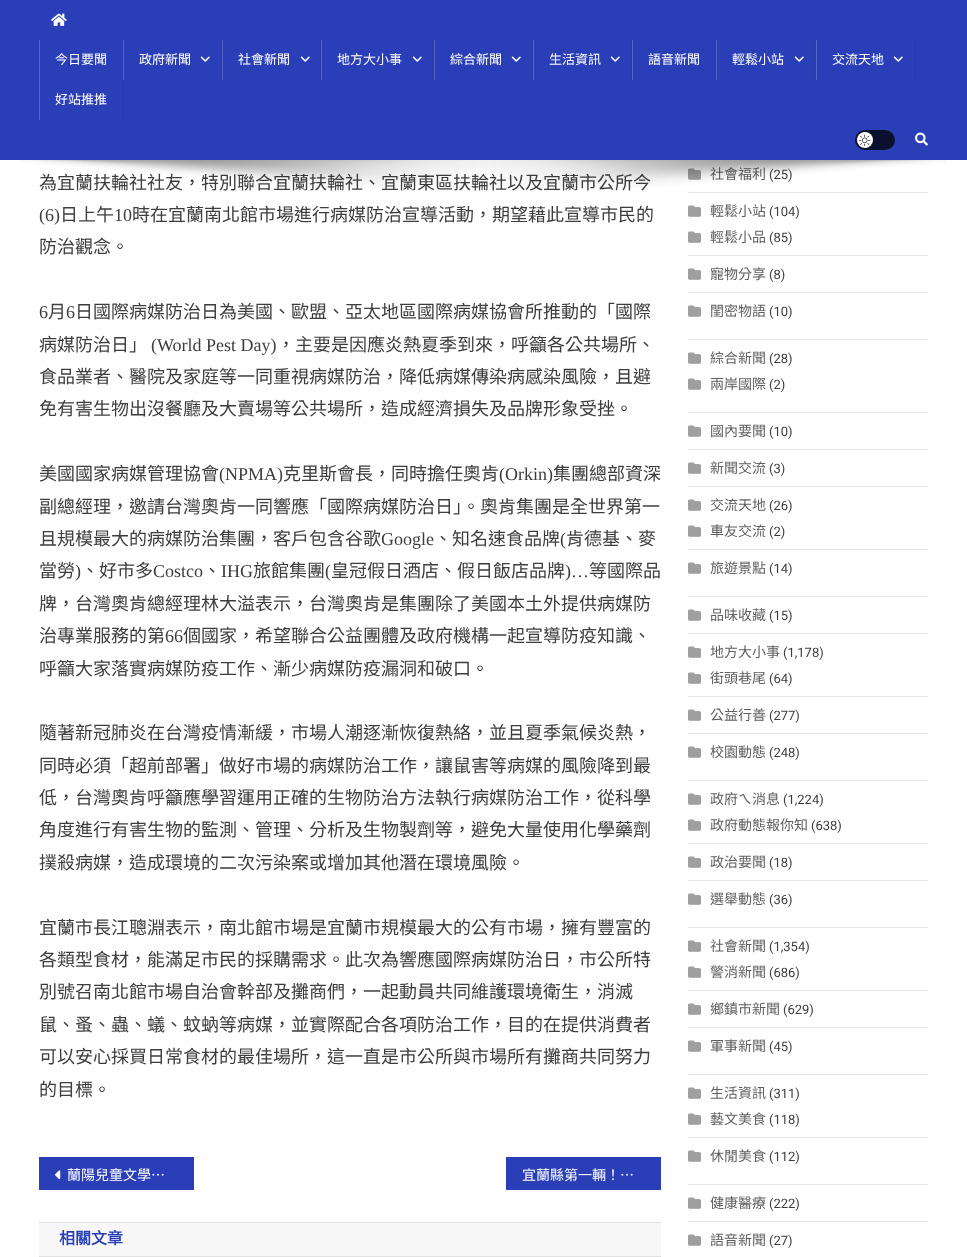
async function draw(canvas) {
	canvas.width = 967;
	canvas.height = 1257;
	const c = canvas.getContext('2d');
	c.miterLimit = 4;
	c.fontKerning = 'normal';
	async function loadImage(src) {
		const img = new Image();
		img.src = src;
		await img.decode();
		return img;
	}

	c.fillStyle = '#fff';
	c.fillRect(0, 0, 967, 1257);
	c.fillStyle = '#2a3fb7';
	c.fillRect(0, 0, 967, 160);
	c.drawImage(await loadImage('img1.png'), 51, 13, 16, 13);
	c.fillStyle = '#273aa8';
	c.fillRect(122, 40, 1, 80);
	c.fillStyle = '#5565c5';
	c.fillRect(39, 40, 1, 80);
	c.font = '13px Noto Sans CJK TC';
	c.fillStyle = '#fff';
	c.fillText('今日要聞', 55, 64);
	c.fillStyle = '#273aa8';
	c.fillRect(221, 40, 1, 40);
	c.fillStyle = '#5565c5';
	c.fillRect(123, 40, 1, 40);
	c.fillStyle = '#fff';
	c.fillText('政府新聞', 139, 64);
	c.drawImage(await loadImage('img2.png'), 200, 56, 10, 6);
	c.fillStyle = '#273aa8';
	c.fillRect(320, 40, 1, 40);
	c.fillStyle = '#5565c5';
	c.fillRect(222, 40, 1, 40);
	c.fillStyle = '#fff';
	c.fillText('社會新聞', 238, 64);
	c.drawImage(await loadImage('img2.png'), 300, 56, 10, 6);
	c.fillStyle = '#273aa8';
	c.fillRect(432, 40, 1, 40);
	c.fillStyle = '#5565c5';
	c.fillRect(321, 40, 1, 40);
	c.fillStyle = '#fff';
	c.fillText('地方大小事', 337, 64);
	c.drawImage(await loadImage('img2.png'), 412, 56, 10, 6);
	c.fillStyle = '#273aa8';
	c.fillRect(532, 40, 1, 40);
	c.fillStyle = '#5565c5';
	c.fillRect(434, 40, 1, 40);
	c.fillStyle = '#fff';
	c.fillText('綜合新聞', 450, 64);
	c.drawImage(await loadImage('img2.png'), 511, 56, 10, 6);
	c.fillStyle = '#273aa8';
	c.fillRect(631, 40, 1, 40);
	c.fillStyle = '#5565c5';
	c.fillRect(533, 40, 1, 40);
	c.fillStyle = '#fff';
	c.fillText('生活資訊', 549, 64);
	c.drawImage(await loadImage('img2.png'), 610, 56, 10, 6);
	c.fillStyle = '#273aa8';
	c.fillRect(715, 40, 1, 40);
	c.fillStyle = '#5565c5';
	c.fillRect(632, 40, 1, 40);
	c.fillStyle = '#fff';
	c.fillText('語音新聞', 648, 64);
	c.fillStyle = '#273aa8';
	c.fillRect(814, 40, 1, 40);
	c.fillStyle = '#5565c5';
	c.fillRect(716, 40, 1, 40);
	c.fillStyle = '#fff';
	c.fillText('輕鬆小站', 732, 64);
	c.drawImage(await loadImage('img2.png'), 794, 56, 10, 6);
	c.fillStyle = '#273aa8';
	c.fillRect(914, 40, 1, 40);
	c.fillStyle = '#5565c5';
	c.fillRect(816, 40, 1, 40);
	c.fillStyle = '#fff';
	c.fillText('交流天地', 832, 64);
	c.drawImage(await loadImage('img2.png'), 893, 56, 10, 6);
	c.fillText('好站推推', 55, 104);
	c.fillStyle = '#0b102e';
	c.beginPath();
	c.roundRect(855, 130, 40, 20, 10);
	c.fill();
	c.fillStyle = '#fff';
	c.beginPath();
	c.arc(865, 140, 8, 0, 2 * Math.PI);
	c.fill();
	c.drawImage(await loadImage('img3.png'), 859, 134, 12, 12);
	c.drawImage(await loadImage('img4.png'), 915, 132, 13, 14);
	c.font = '18px Noto Sans CJK TC';
	c.fillStyle = '#3d3d3d';
	c.fillText('為宜蘭扶輪社社友，特別聯合宜蘭扶輪社、宜蘭東區扶輪社以及宜蘭市公所今', 39, 189);
	c.drawImage(await loadImage('img7.png'), 688, 168, 13, 12);
	c.font = '14px Noto Sans CJK TC';
	c.fillStyle = '#5f5f5f';
	c.fillText('社會福利', 710, 179);
	c.font = '13px Roboto';
	c.fillStyle = '#3d3d3d';
	c.fillText('(25)', 769, 179);
	c.drawImage(await loadImage('img5.png'), 21, 160, 925, 28);
	c.font = '18px Liberation Serif';
	c.fillText('(6)', 39, 221);
	c.font = '18px Noto Sans CJK TC';
	c.fillText('日上午', 60, 221);
	c.font = '18px Liberation Serif';
	c.fillText('10', 114, 221);
	c.font = '18px Noto Sans CJK TC';
	c.fillText('時在宜蘭南北館市場進行病媒防治宣導活動，期望藉此宣導市民的', 132, 221);
	c.fillText('防治觀念。', 39, 253);
	c.font = '18px Liberation Serif';
	c.fillText('6', 39, 318);
	c.font = '18px Noto Sans CJK TC';
	c.fillText('月', 48, 318);
	c.font = '18px Liberation Serif';
	c.fillText('6', 66, 318);
	c.font = '18px Noto Sans CJK TC';
	c.fillText('日國際病媒防治日為美國、歐盟、亞太地區國際病媒協會所推動的「國際', 75, 318);
	c.fillText('病媒防治日」', 39, 351);
	c.font = '18px Liberation Serif';
	c.fillText('(World Pest Day)', 151, 351);
	c.font = '18px Noto Sans CJK TC';
	for (const [text, x, y] of [
		['，主要是因應炎熱夏季到來，呼籲各公共場所、', 277, 351],
		['食品業者、醫院及家庭等一同重視病媒防治，降低病媒傳染病感染風險，且避', 39, 383],
		['免有害生物出沒餐廳及大賣場等公共場所，造成經濟損失及品牌形象受挫。', 39, 415],
		['美國國家病媒管理協會', 39, 480],
	]) {
		c.fillText(text, x, y);
	}
	c.font = '18px Liberation Serif';
	c.fillText('(NPMA)', 219, 480);
	c.font = '18px Noto Sans CJK TC';
	c.fillText('克里斯會長，同時擔任奧肯', 283, 480);
	c.font = '18px Liberation Serif';
	c.fillText('(Orkin)', 499, 480);
	c.font = '18px Noto Sans CJK TC';
	for (const [text, x, y] of [
		['集團總部資深', 553, 480],
		['副總經理，邀請台灣奧肯一同響應「國際病媒防治日」。奧肯集團是全世界第一', 39, 513],
		['且規模最大的病媒防治集團，客戶包含谷歌', 39, 545],
	]) {
		c.fillText(text, x, y);
	}
	c.font = '18px Liberation Serif';
	c.fillText('Google', 381, 545);
	c.font = '18px Noto Sans CJK TC';
	c.fillText('、知名速食品牌', 434, 545);
	c.font = '18px Liberation Serif';
	c.fillText('(', 560, 545);
	c.font = '18px Noto Sans CJK TC';
	c.fillText('肯德基、麥', 566, 545);
	c.fillText('當勞', 39, 577);
	c.font = '18px Liberation Serif';
	c.fillText(')', 75, 577);
	c.font = '18px Noto Sans CJK TC';
	c.fillText('、好市多', 81, 577);
	c.font = '18px Liberation Serif';
	c.fillText('Costco', 153, 577);
	c.font = '18px Noto Sans CJK TC';
	c.fillText('、', 203, 577);
	c.font = '18px Liberation Serif';
	c.fillText('IHG', 221, 577);
	c.font = '18px Noto Sans CJK TC';
	c.fillText('旅館集團', 253, 577);
	c.font = '18px Liberation Serif';
	c.fillText('(', 325, 577);
	c.font = '18px Noto Sans CJK TC';
	c.fillText('皇冠假日酒店、假日飯店品牌', 331, 577);
	c.font = '18px Liberation Serif';
	c.fillText(')…', 565, 577);
	c.font = '18px Noto Sans CJK TC';
	for (const [text, x, y] of [
		['等國際品', 589, 577],
		['牌，台灣奧肯總經理林大溢表示，台灣奧肯是集團除了美國本土外提供病媒防', 39, 610],
		['治專業服務的第', 39, 642],
	]) {
		c.fillText(text, x, y);
	}
	c.font = '18px Liberation Serif';
	c.fillText('66', 165, 642);
	c.font = '18px Noto Sans CJK TC';
	for (const [text, x, y] of [
		['個國家，希望聯合公益團體及政府機構一起宣導防疫知識、', 183, 642],
		['呼籲大家落實病媒防疫工作、漸少病媒防疫漏洞和破口。', 39, 675],
		['隨著新冠肺炎在台灣疫情漸緩，市場人潮逐漸恢復熱絡，並且夏季氣候炎熱，', 39, 739],
		['同時必須「超前部署」做好市場的病媒防治工作，讓鼠害等病媒的風險降到最', 39, 772],
		['低，台灣奧肯呼籲應學習運用正確的生物防治方法執行病媒防治工作，從科學', 39, 804],
		['角度進行有害生物的監測、管理、分析及生物製劑等，避免大量使用化學藥劑', 39, 836],
		['撲殺病媒，造成環境的二次污染案或增加其他潛在環境風險。', 39, 869],
		['宜蘭市長江聰淵表示，南北館市場是宜蘭市規模最大的公有市場，擁有豐富的', 39, 934],
		['各類型食材，能滿足市民的採購需求。此次為響應國際病媒防治日，市公所特', 39, 966],
		['別號召南北館市場自治會幹部及攤商們，一起動員共同維護環境衛生，消滅', 39, 998],
		['鼠、蚤、蟲、蟻、蚊蚋等病媒，並實際配合各項防治工作，目的在提供消費者', 39, 1031],
		['可以安心採買日常食材的最佳場所，這一直是市公所與市場所有攤商共同努力', 39, 1063],
		['的目標。', 39, 1096],
	]) {
		c.fillText(text, x, y);
	}
	c.fillStyle = '#2a3fb7';
	c.fillRect(39, 1157, 155, 33);
	c.drawImage(await loadImage('img6.png'), 55, 1170, 6, 10);
	c.font = '14px Noto Sans CJK TC';
	c.fillStyle = '#fff';
	c.fillText('蘭陽兒童文學…', 67, 1180);
	c.fillStyle = '#2a3fb7';
	c.fillRect(506, 1157, 155, 33);
	c.fillStyle = '#fff';
	c.fillText('宜蘭縣第一輛！…', 522, 1180);
	for (const [x, y, w, h, color] of [
		[39, 1223, 622, 33, '#f7f7f7'],
		[39, 1222, 622, 1, '#e1e1e1'],
		[39, 1256, 622, 1, '#e1e1e1'],
	]) {
		c.fillStyle = color;
		c.fillRect(x, y, w, h);
	}
	c.font = 'bold 16px Noto Sans CJK TC';
	c.fillStyle = '#2a3fb7';
	c.fillText('相關文章', 59, 1244);
	c.fillStyle = '#e6e6e6';
	c.fillRect(688, 192, 240, 1);
	c.fillRect(688, 339, 240, 1);
	c.drawImage(await loadImage('img7.png'), 688, 205, 13, 12);
	c.font = '14px Noto Sans CJK TC';
	c.fillStyle = '#5f5f5f';
	c.fillText('輕鬆小站', 710, 216);
	c.font = '13px Roboto';
	c.fillStyle = '#3d3d3d';
	c.fillText('(104)', 769, 216);
	c.fillStyle = '#e6e6e6';
	c.fillRect(688, 255, 240, 1);
	c.drawImage(await loadImage('img7.png'), 688, 231, 13, 12);
	c.font = '14px Noto Sans CJK TC';
	c.fillStyle = '#5f5f5f';
	c.fillText('輕鬆小品', 710, 242);
	c.font = '13px Roboto';
	c.fillStyle = '#3d3d3d';
	c.fillText('(85)', 769, 242);
	c.fillStyle = '#e6e6e6';
	c.fillRect(688, 292, 240, 1);
	c.drawImage(await loadImage('img7.png'), 688, 268, 13, 12);
	c.font = '14px Noto Sans CJK TC';
	c.fillStyle = '#5f5f5f';
	c.fillText('寵物分享', 710, 279);
	c.font = '13px Roboto';
	c.fillStyle = '#3d3d3d';
	c.fillText('(8)', 769, 279);
	c.drawImage(await loadImage('img7.png'), 688, 305, 13, 12);
	c.font = '14px Noto Sans CJK TC';
	c.fillStyle = '#5f5f5f';
	c.fillText('閨密物語', 710, 316);
	c.font = '13px Roboto';
	c.fillStyle = '#3d3d3d';
	c.fillText('(10)', 769, 316);
	c.fillStyle = '#e6e6e6';
	c.fillRect(688, 412, 240, 1);
	c.drawImage(await loadImage('img7.png'), 688, 352, 13, 12);
	c.font = '14px Noto Sans CJK TC';
	c.fillStyle = '#5f5f5f';
	c.fillText('綜合新聞', 710, 363);
	c.font = '13px Roboto';
	c.fillStyle = '#3d3d3d';
	c.fillText('(28)', 769, 363);
	c.drawImage(await loadImage('img7.png'), 688, 378, 13, 12);
	c.font = '14px Noto Sans CJK TC';
	c.fillStyle = '#5f5f5f';
	c.fillText('兩岸國際', 710, 389);
	c.font = '13px Roboto';
	c.fillStyle = '#3d3d3d';
	c.fillText('(2)', 769, 389);
	c.fillStyle = '#e6e6e6';
	c.fillRect(688, 449, 240, 1);
	c.drawImage(await loadImage('img7.png'), 688, 425, 13, 12);
	c.font = '14px Noto Sans CJK TC';
	c.fillStyle = '#5f5f5f';
	c.fillText('國內要聞', 710, 436);
	c.font = '13px Roboto';
	c.fillStyle = '#3d3d3d';
	c.fillText('(10)', 769, 436);
	c.fillStyle = '#e6e6e6';
	c.fillRect(688, 486, 240, 1);
	c.drawImage(await loadImage('img7.png'), 688, 462, 13, 12);
	c.font = '14px Noto Sans CJK TC';
	c.fillStyle = '#5f5f5f';
	c.fillText('新聞交流', 710, 473);
	c.font = '13px Roboto';
	c.fillStyle = '#3d3d3d';
	c.fillText('(3)', 769, 473);
	c.fillStyle = '#e6e6e6';
	c.fillRect(688, 596, 240, 1);
	c.drawImage(await loadImage('img7.png'), 688, 499, 13, 12);
	c.font = '14px Noto Sans CJK TC';
	c.fillStyle = '#5f5f5f';
	c.fillText('交流天地', 710, 510);
	c.font = '13px Roboto';
	c.fillStyle = '#3d3d3d';
	c.fillText('(26)', 769, 510);
	c.fillStyle = '#e6e6e6';
	c.fillRect(688, 549, 240, 1);
	c.drawImage(await loadImage('img7.png'), 688, 525, 13, 12);
	c.font = '14px Noto Sans CJK TC';
	c.fillStyle = '#5f5f5f';
	c.fillText('車友交流', 710, 536);
	c.font = '13px Roboto';
	c.fillStyle = '#3d3d3d';
	c.fillText('(2)', 769, 536);
	c.drawImage(await loadImage('img7.png'), 688, 562, 13, 12);
	c.font = '14px Noto Sans CJK TC';
	c.fillStyle = '#5f5f5f';
	c.fillText('旅遊景點', 710, 573);
	c.font = '13px Roboto';
	c.fillStyle = '#3d3d3d';
	c.fillText('(14)', 769, 573);
	c.fillStyle = '#e6e6e6';
	c.fillRect(688, 633, 240, 1);
	c.drawImage(await loadImage('img7.png'), 688, 609, 13, 12);
	c.font = '14px Noto Sans CJK TC';
	c.fillStyle = '#5f5f5f';
	c.fillText('品味收藏', 710, 620);
	c.font = '13px Roboto';
	c.fillStyle = '#3d3d3d';
	c.fillText('(15)', 769, 620);
	c.fillStyle = '#e6e6e6';
	c.fillRect(688, 780, 240, 1);
	c.drawImage(await loadImage('img7.png'), 688, 646, 13, 12);
	c.font = '14px Noto Sans CJK TC';
	c.fillStyle = '#5f5f5f';
	c.fillText('地方大小事', 710, 657);
	c.font = '13px Roboto';
	c.fillStyle = '#3d3d3d';
	c.fillText('(1,178)', 783, 657);
	c.fillStyle = '#e6e6e6';
	c.fillRect(688, 696, 240, 1);
	c.drawImage(await loadImage('img7.png'), 688, 672, 13, 12);
	c.font = '14px Noto Sans CJK TC';
	c.fillStyle = '#5f5f5f';
	c.fillText('街頭巷尾', 710, 683);
	c.font = '13px Roboto';
	c.fillStyle = '#3d3d3d';
	c.fillText('(64)', 769, 683);
	c.fillStyle = '#e6e6e6';
	c.fillRect(688, 733, 240, 1);
	c.drawImage(await loadImage('img7.png'), 688, 709, 13, 12);
	c.font = '14px Noto Sans CJK TC';
	c.fillStyle = '#5f5f5f';
	c.fillText('公益行善', 710, 720);
	c.font = '13px Roboto';
	c.fillStyle = '#3d3d3d';
	c.fillText('(277)', 769, 720);
	c.drawImage(await loadImage('img7.png'), 688, 746, 13, 12);
	c.font = '14px Noto Sans CJK TC';
	c.fillStyle = '#5f5f5f';
	c.fillText('校園動態', 710, 757);
	c.font = '13px Roboto';
	c.fillStyle = '#3d3d3d';
	c.fillText('(248)', 769, 757);
	c.fillStyle = '#e6e6e6';
	c.fillRect(688, 927, 240, 1);
	c.drawImage(await loadImage('img7.png'), 688, 793, 13, 12);
	c.font = '14px Noto Sans CJK TC';
	c.fillStyle = '#5f5f5f';
	c.fillText('政府ㄟ消息', 710, 804);
	c.font = '13px Roboto';
	c.fillStyle = '#3d3d3d';
	c.fillText('(1,224)', 783, 804);
	c.fillStyle = '#e6e6e6';
	c.fillRect(688, 843, 240, 1);
	c.drawImage(await loadImage('img7.png'), 688, 819, 13, 12);
	c.font = '14px Noto Sans CJK TC';
	c.fillStyle = '#5f5f5f';
	c.fillText('政府動態報你知', 710, 830);
	c.font = '13px Roboto';
	c.fillStyle = '#3d3d3d';
	c.fillText('(638)', 811, 830);
	c.fillStyle = '#e6e6e6';
	c.fillRect(688, 880, 240, 1);
	c.drawImage(await loadImage('img7.png'), 688, 856, 13, 12);
	c.font = '14px Noto Sans CJK TC';
	c.fillStyle = '#5f5f5f';
	c.fillText('政治要聞', 710, 867);
	c.font = '13px Roboto';
	c.fillStyle = '#3d3d3d';
	c.fillText('(18)', 769, 867);
	c.drawImage(await loadImage('img7.png'), 688, 893, 13, 12);
	c.font = '14px Noto Sans CJK TC';
	c.fillStyle = '#5f5f5f';
	c.fillText('選舉動態', 710, 904);
	c.font = '13px Roboto';
	c.fillStyle = '#3d3d3d';
	c.fillText('(36)', 769, 904);
	c.fillStyle = '#e6e6e6';
	c.fillRect(688, 1074, 240, 1);
	c.drawImage(await loadImage('img7.png'), 688, 940, 13, 12);
	c.font = '14px Noto Sans CJK TC';
	c.fillStyle = '#5f5f5f';
	c.fillText('社會新聞', 710, 951);
	c.font = '13px Roboto';
	c.fillStyle = '#3d3d3d';
	c.fillText('(1,354)', 769, 951);
	c.fillStyle = '#e6e6e6';
	c.fillRect(688, 990, 240, 1);
	c.drawImage(await loadImage('img7.png'), 688, 966, 13, 12);
	c.font = '14px Noto Sans CJK TC';
	c.fillStyle = '#5f5f5f';
	c.fillText('警消新聞', 710, 977);
	c.font = '13px Roboto';
	c.fillStyle = '#3d3d3d';
	c.fillText('(686)', 769, 977);
	c.fillStyle = '#e6e6e6';
	c.fillRect(688, 1027, 240, 1);
	c.drawImage(await loadImage('img7.png'), 688, 1003, 13, 12);
	c.font = '14px Noto Sans CJK TC';
	c.fillStyle = '#5f5f5f';
	c.fillText('鄉鎮市新聞', 710, 1014);
	c.font = '13px Roboto';
	c.fillStyle = '#3d3d3d';
	c.fillText('(629)', 783, 1014);
	c.drawImage(await loadImage('img7.png'), 688, 1040, 13, 12);
	c.font = '14px Noto Sans CJK TC';
	c.fillStyle = '#5f5f5f';
	c.fillText('軍事新聞', 710, 1051);
	c.font = '13px Roboto';
	c.fillStyle = '#3d3d3d';
	c.fillText('(45)', 769, 1051);
	c.fillStyle = '#e6e6e6';
	c.fillRect(688, 1184, 240, 1);
	c.drawImage(await loadImage('img7.png'), 688, 1087, 13, 12);
	c.font = '14px Noto Sans CJK TC';
	c.fillStyle = '#5f5f5f';
	c.fillText('生活資訊', 710, 1098);
	c.font = '13px Roboto';
	c.fillStyle = '#3d3d3d';
	c.fillText('(311)', 769, 1098);
	c.fillStyle = '#e6e6e6';
	c.fillRect(688, 1137, 240, 1);
	c.drawImage(await loadImage('img7.png'), 688, 1113, 13, 12);
	c.font = '14px Noto Sans CJK TC';
	c.fillStyle = '#5f5f5f';
	c.fillText('藝文美食', 710, 1124);
	c.font = '13px Roboto';
	c.fillStyle = '#3d3d3d';
	c.fillText('(118)', 769, 1124);
	c.drawImage(await loadImage('img7.png'), 688, 1150, 13, 12);
	c.font = '14px Noto Sans CJK TC';
	c.fillStyle = '#5f5f5f';
	c.fillText('休閒美食', 710, 1161);
	c.font = '13px Roboto';
	c.fillStyle = '#3d3d3d';
	c.fillText('(112)', 769, 1161);
	c.fillStyle = '#e6e6e6';
	c.fillRect(688, 1221, 240, 1);
	c.drawImage(await loadImage('img7.png'), 688, 1197, 13, 12);
	c.font = '14px Noto Sans CJK TC';
	c.fillStyle = '#5f5f5f';
	c.fillText('健康醫療', 710, 1208);
	c.font = '13px Roboto';
	c.fillStyle = '#3d3d3d';
	c.fillText('(222)', 769, 1208);
	c.drawImage(await loadImage('img7.png'), 688, 1234, 13, 12);
	c.font = '14px Noto Sans CJK TC';
	c.fillStyle = '#5f5f5f';
	c.fillText('語音新聞', 710, 1245);
	c.font = '13px Roboto';
	c.fillStyle = '#3d3d3d';
	c.fillText('(27)', 769, 1245);
}

draw(document.querySelector('canvas'));
